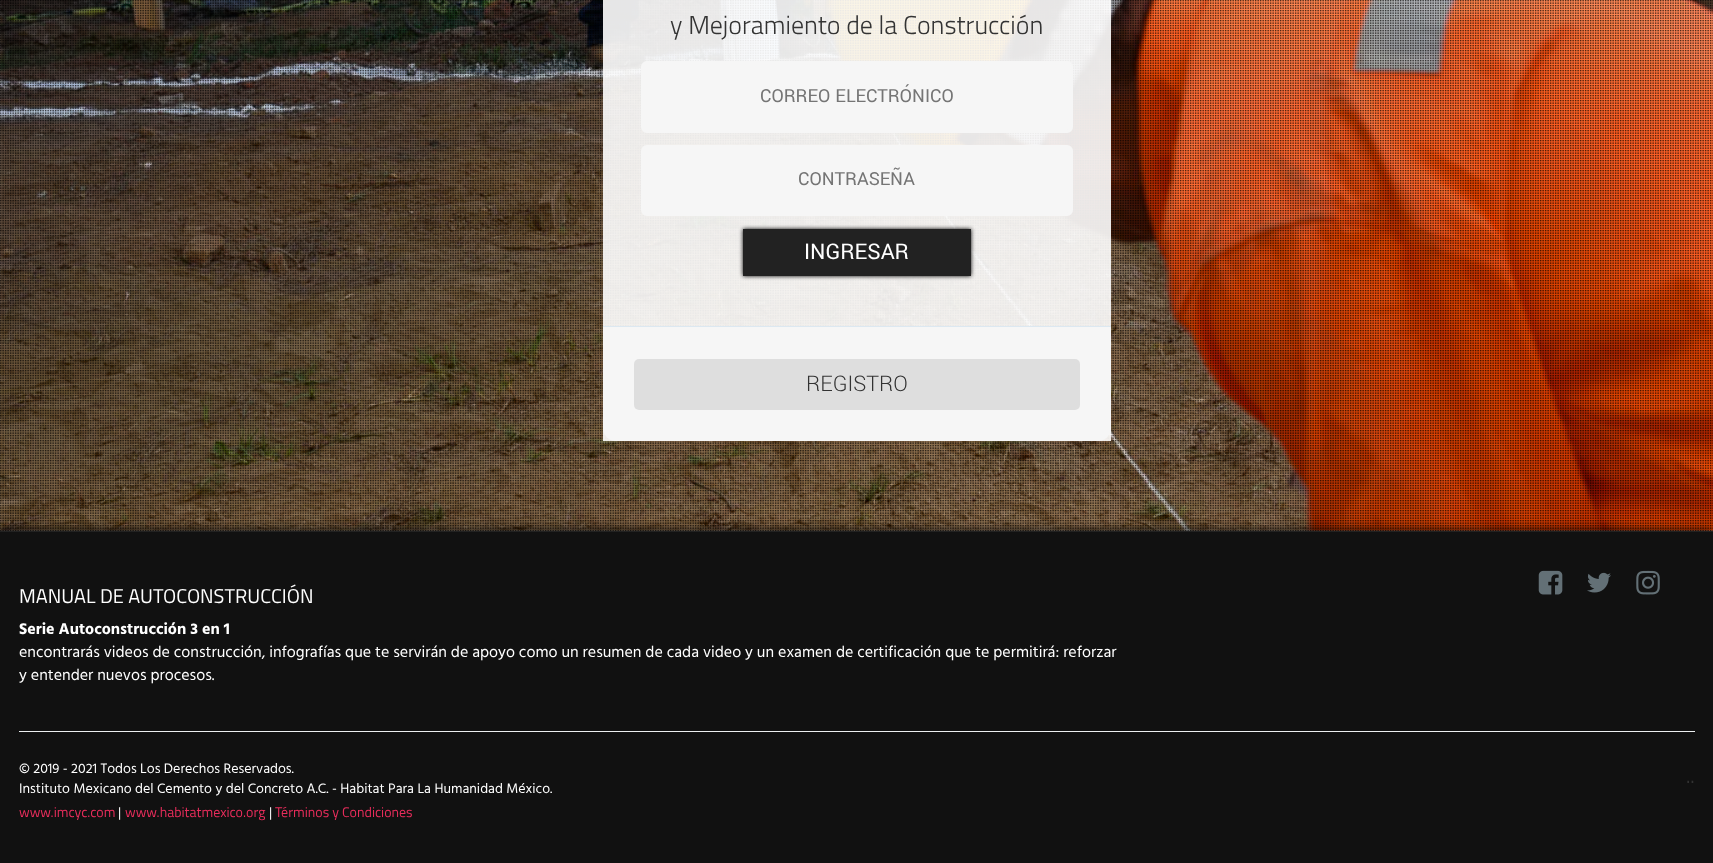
async function draw(canvas) {
	canvas.width = 1713;
	canvas.height = 863;
	const c = canvas.getContext('2d');
	c.miterLimit = 4;
	c.fontKerning = 'normal';
	async function loadImage(src) {
		const img = new Image();
		img.src = src;
		await img.decode();
		return img;
	}

	c.fillStyle = '#fff';
	c.fillRect(0, 0, 1713, 863);
	c.drawImage(await loadImage('img2.png'), 0, 0, 1713, 531);
	c.drawImage(await loadImage('img1.png'), 0, 0, 1713, 531);
	c.fillStyle = '#ffffffe6';
	c.fillRect(603, 0, 508, 441);
	c.font = '300 26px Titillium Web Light';
	c.fillStyle = '#333';
	c.fillText('y Mejoramiento de la Construcción', 670, 34);
	c.fillStyle = '#f6f6f6';
	c.beginPath();
	c.roundRect(642.5, 62.5, 429, 69, 4.5);
	c.fill();
	c.strokeStyle = '#f6f6f6';
	c.lineWidth = 3;
	c.stroke();
	c.font = '20px Yantramanav';
	c.fillStyle = '#757575';
	c.fillText('CORREO ELECTRÓNICO', 760, 102);
	c.fillStyle = '#f6f6f6';
	c.beginPath();
	c.roundRect(642.5, 146.5, 429, 68, 4.5);
	c.fill();
	c.stroke();
	c.fillStyle = '#757575';
	c.fillText('CONTRASEÑA', 798, 185);
	c.fillStyle = '#000';
	c.filter = 'blur(2px)';
	c.beginPath();
	c.rect(743, 229, 228, 47);
	c.fill();
	c.filter = 'none';
	c.fillStyle = '#222';
	c.fillRect(743, 229, 228, 47);
	c.font = '24px Yantramanav';
	c.fillStyle = '#fff';
	c.fillText('INGRESAR', 804, 259);
	c.fillStyle = '#f6f6f6';
	c.beginPath();
	c.roundRect(603, 326, 508, 115, [0, 0, 13, 13]);
	c.fill();
	c.fillStyle = '#dce8f1';
	c.fillRect(603, 326, 508, 1);
	c.fillStyle = '#dedede';
	c.beginPath();
	c.roundRect(634, 359, 446, 51, 5);
	c.fill();
	c.font = '300 24px Yantramanav';
	c.fillStyle = '#333';
	c.fillText('REGISTRO', 806, 391);
	c.fillStyle = '#000';
	c.filter = 'blur(6px)';
	c.beginPath();
	c.rect(0, 531, 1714, 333);
	c.fill();
	c.filter = 'none';
	c.fillStyle = '#111';
	c.fillRect(0, 532, 1713, 331);
	c.fillStyle = '#222';
	c.fillRect(0, 531, 1713, 1);
	c.font = '20px Titillium Web';
	c.fillStyle = '#fff';
	c.fillText('MANUAL DE AUTOCONSTRUCCIÓN', 19, 603);
	c.font = 'bold 16px Hind Guntur';
	c.fillText('Serie Autoconstrucción 3 en 1', 19, 634);
	c.font = '16px Hind Guntur';
	c.fillText('encontrarás videos de construcción, infografías que te servirán de apoyo como un resumen de cada video y un examen de certificación que te permitirá: reforzar', 19, 657);
	c.fillText('y entender nuevos procesos.', 19, 680);
	c.drawImage(await loadImage('img3.png'), 1538, 570, 25, 25);
	c.drawImage(await loadImage('img4.png'), 1587, 572, 24, 21);
	c.drawImage(await loadImage('img5.png'), 1636, 570, 24, 25);
	c.fillStyle = '#eceff0';
	c.fillRect(19, 731, 1676, 1);
	c.font = '14px Hind Guntur';
	c.fillStyle = '#fff';
	c.fillText('© 2019 - 2021 Todos Los Derechos Reservados.', 19, 773);
	c.fillText('Instituto Mexicano del Cemento y del Concreto A.C. - Habitat Para La Humanidad México.', 19, 793);
	c.font = '14px Titillium Web';
	c.fillStyle = '#ea2d5c';
	c.fillText('www.imcyc.com', 19, 817);
	c.font = '14px Hind Guntur';
	c.fillStyle = '#fff';
	c.fillText('|', 118, 817);
	c.font = '14px Titillium Web';
	c.fillStyle = '#ea2d5c';
	c.fillText('www.habitatmexico.org', 125, 817);
	c.font = '14px Hind Guntur';
	c.fillStyle = '#fff';
	c.fillText('|', 269, 817);
	c.font = '14px Titillium Web';
	c.fillStyle = '#ea2d5c';
	c.fillText('Términos y Condiciones', 275, 817);
	c.font = '20px Titillium Web';
	c.fillStyle = '#333';
	c.fillText('..', 1686, 783);
}

draw(document.querySelector('canvas'));
